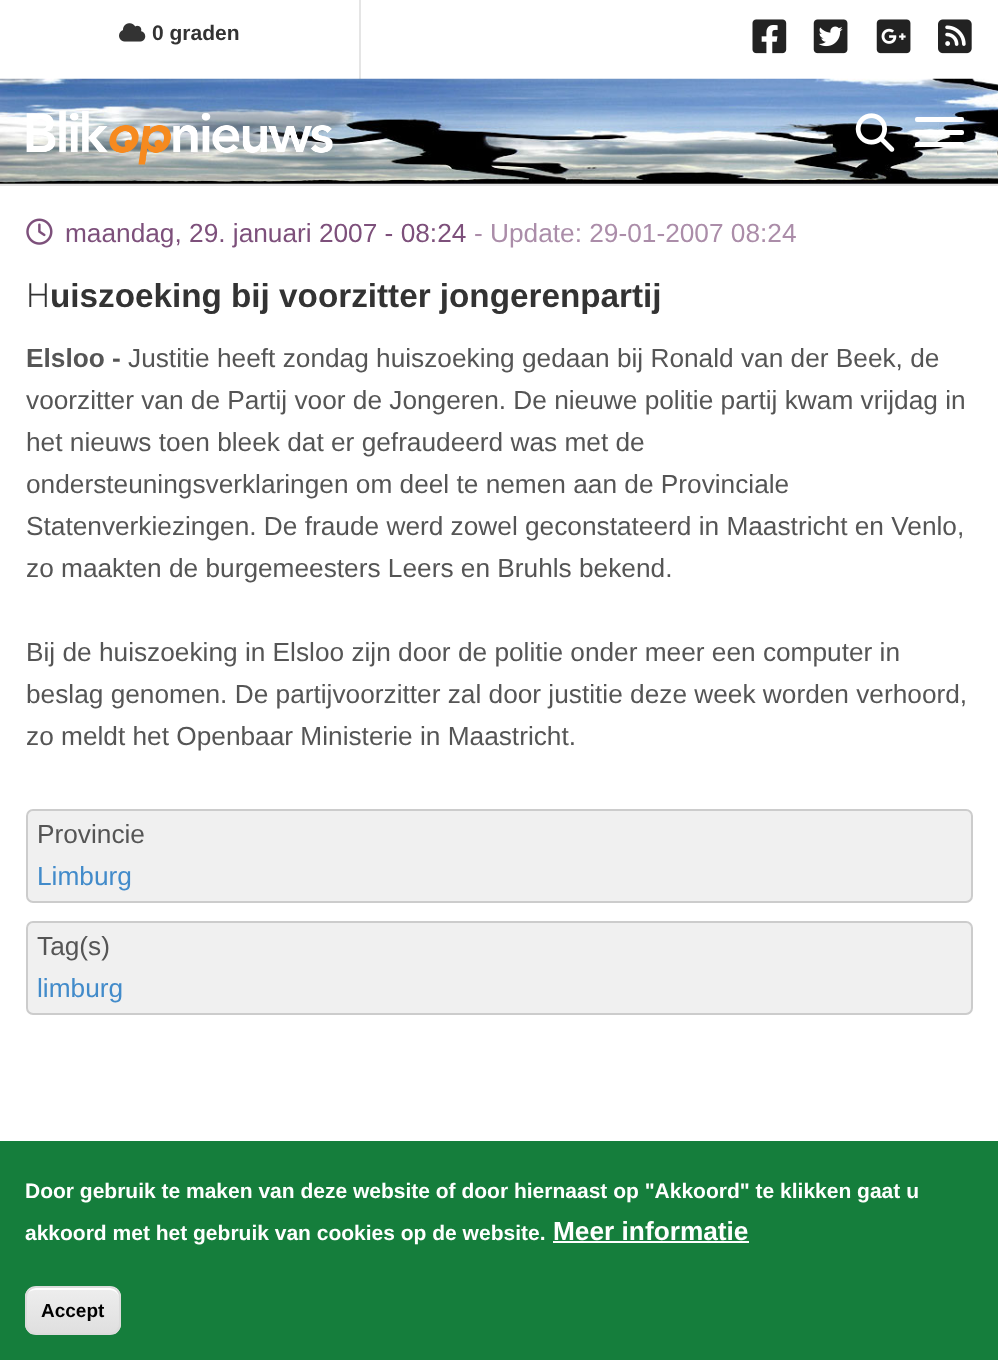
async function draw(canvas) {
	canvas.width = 998;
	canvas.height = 1360;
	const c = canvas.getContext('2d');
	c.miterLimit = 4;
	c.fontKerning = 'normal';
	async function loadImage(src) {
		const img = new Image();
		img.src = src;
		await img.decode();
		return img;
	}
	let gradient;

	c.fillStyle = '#fff';
	c.fillRect(0, 0, 998, 1360);
	c.fillStyle = '#e5e5e5';
	c.fillRect(359, 0, 2, 79);
	c.drawImage(await loadImage('img1.png'), 119, 23, 27, 19);
	c.font = 'bold 21px Liberation Sans';
	c.fillStyle = '#333';
	c.fillText('0 graden', 152, 40);
	c.drawImage(await loadImage('img2.png'), 752, 19, 35, 35);
	c.drawImage(await loadImage('img3.png'), 813, 19, 35, 35);
	c.drawImage(await loadImage('img4.png'), 876, 19, 35, 35);
	c.drawImage(await loadImage('img5.png'), 938, 19, 34, 35);
	c.drawImage(await loadImage('img6.png'), 0, 78, 998, 106);
	c.drawImage(await loadImage('img7.png'), 26, 111, 307, 54);
	c.drawImage(await loadImage('img8.png'), 855, 113, 40, 39);
	c.fillStyle = '#fff';
	c.beginPath();
	c.roundRect(915, 117, 49, 5, 2);
	c.fill();
	c.beginPath();
	c.roundRect(915, 130, 49, 5, 2);
	c.fill();
	c.beginPath();
	c.roundRect(915, 142, 49, 5, 2);
	c.fill();
	c.fillStyle = '#e4e4e4';
	c.fillRect(0, 184, 998, 2);
	c.drawImage(await loadImage('img9.png'), 26, 218, 27, 27);
	c.font = '26.25px Liberation Sans';
	c.fillStyle = '#7d507b';
	c.fillText('maandag, 29. januari 2007 - 08:24', 65, 242);
	c.fillStyle = '#ab8da9';
	c.fillText('- Update: 29-01-2007 08:24', 474, 242);
	c.font = '300 33.25px Noto Sans';
	c.fillStyle = '#333';
	c.fillText('H', 26, 307);
	c.font = 'bold 33.25px Liberation Sans';
	c.fillText('uiszoeking bij voorzitter jongerenpartij', 50, 307);
	c.font = '26.25px Liberation Sans';
	c.fillStyle = '#555';
	for (const [text, x, y] of [
		['Justitie heeft zondag huiszoeking gedaan bij Ronald van der Beek, de', 128, 367],
		['voorzitter van de Partij voor de Jongeren. De nieuwe politie partij kwam vrijdag in', 26, 409],
		['het nieuws toen bleek dat er gefraudeerd was met de', 26, 451],
		['ondersteuningsverklaringen om deel te nemen aan de Provinciale', 26, 493],
		['Statenverkiezingen. De fraude werd zowel geconstateerd in Maastricht en Venlo,', 26, 535],
		['zo maakten de burgemeesters Leers en Bruhls bekend.', 26, 577],
	]) {
		c.fillText(text, x, y);
	}
	c.font = 'bold 26.25px Liberation Sans';
	c.fillText('Elsloo -', 26, 367);
	c.font = '26.25px Liberation Sans';
	for (const [text, x, y] of [
		['Bij de huiszoeking in Elsloo zijn door de politie onder meer een computer in', 26, 661],
		['beslag genomen. De partijvoorzitter zal door justitie deze week worden verhoord,', 26, 703],
		['zo meldt het Openbaar Ministerie in Maastricht.', 26, 745],
	]) {
		c.fillText(text, x, y);
	}
	c.fillStyle = '#f0f0f0';
	c.beginPath();
	c.roundRect(27, 810, 945, 92, 6);
	c.fill();
	c.strokeStyle = '#ccc';
	c.lineWidth = 2;
	c.stroke();
	c.fillStyle = '#555';
	c.fillText('Provincie', 37, 843);
	c.fillStyle = '#428bca';
	c.fillText('Limburg', 37, 885);
	c.fillStyle = '#f0f0f0';
	c.beginPath();
	c.roundRect(27, 922, 945, 92, 6);
	c.fill();
	c.stroke();
	c.fillStyle = '#555';
	c.fillText('Tag(s)', 37, 955);
	c.fillStyle = '#428bca';
	c.fillText('limburg', 37, 997);
	c.fillStyle = '#157e3c';
	c.fillRect(0, 1141, 998, 219);
	c.font = 'bold 21px Liberation Sans';
	c.fillStyle = '#fff';
	c.fillText('Door gebruik te maken van deze website of door hiernaast op "Akkoord" te klikken gaat u', 25, 1198);
	c.fillText('akkoord met het gebruik van cookies op de website.', 25, 1240);
	c.font = 'bold 26.25px Liberation Sans';
	c.fillText('Meer informatie', 553, 1240);
	c.fillRect(553, 1241, 196, 2);
	c.save();
	c.beginPath();
	c.roundRect(25, 1286, 96, 49, 11);
	c.clip();
	gradient = c.createLinearGradient(73, 1288, 73, 1334);
	gradient.addColorStop(0.05, '#ededed');
	gradient.addColorStop(1, '#dfdfdf');
	c.fillStyle = gradient;
	c.fillRect(25, 1288, 96, 46);
	c.restore();
	c.beginPath();
	c.moveTo(35, 1290);
	c.lineTo(110, 1290);
	c.bezierCurveTo(115, 1290, 119, 1294, 119, 1298);
	c.bezierCurveTo(119, 1285, 106, 1288, 98, 1288);
	c.lineTo(48, 1288);
	c.bezierCurveTo(39, 1288, 26, 1285, 26, 1298);
	c.bezierCurveTo(26, 1294, 30, 1290, 35, 1290);
	c.closePath();
	c.fill();
	c.beginPath();
	c.roundRect(26, 1287, 94, 47, 10);
	c.strokeStyle = '#dcdcdc';
	c.stroke();
	c.font = 'bold 19px Liberation Sans';
	c.fillStyle = '#000';
	c.fillText('Accept', 41, 1317);
}

draw(document.querySelector('canvas'));
